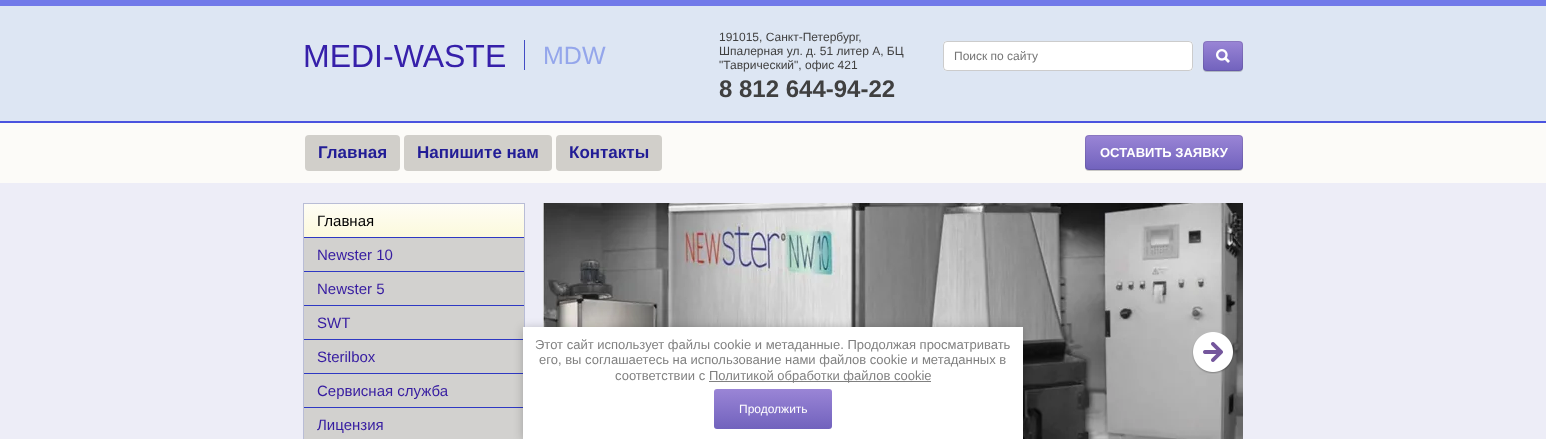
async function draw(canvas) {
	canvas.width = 1546;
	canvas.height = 439;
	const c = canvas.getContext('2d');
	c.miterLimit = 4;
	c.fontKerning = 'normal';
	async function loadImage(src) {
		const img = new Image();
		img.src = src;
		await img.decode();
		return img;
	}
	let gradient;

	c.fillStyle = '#ededf7';
	c.fillRect(0, 0, 1546, 439);
	c.fillStyle = '#717ae9';
	c.fillRect(0, 0, 1546, 6);
	c.fillStyle = '#dde6f3';
	c.fillRect(0, 6, 1546, 115);
	c.font = '32px Liberation Sans';
	c.fillStyle = '#3620aa';
	c.fillText('MEDI-WASTE', 303, 67);
	c.fillStyle = '#434cc4';
	c.fillRect(524, 40, 1, 30);
	c.font = '25px Liberation Sans';
	c.fillStyle = '#94a6eb';
	c.fillText('МDW', 543, 64);
	c.font = '12px Liberation Sans';
	c.fillStyle = '#404040';
	for (const [text, x, y] of [
		['191015, Санкт-Петербург,', 719, 41],
		['Шпалерная ул. д. 51 литер А, БЦ', 719, 55],
		['"Таврический", офис 421', 719, 69],
	]) {
		c.fillText(text, x, y);
	}
	c.font = 'bold 24px Liberation Sans';
	c.fillText('8 812 644-94-22', 719, 97);
	c.fillStyle = '#fff';
	c.beginPath();
	c.roundRect(943, 41, 250, 30, 4);
	c.fill();
	c.beginPath();
	c.roundRect(943.5, 41.5, 249, 29, 3.5);
	c.strokeStyle = '#00000033';
	c.stroke();
	c.font = '12px Liberation Sans';
	c.fillStyle = '#757575';
	c.fillText('Поиск по сайту', 954, 60);
	c.fillStyle = '#00000033';
	c.filter = 'blur(0.5px)';
	c.beginPath();
	c.roundRect(1203, 42, 40, 30, 4);
	c.fill();
	c.filter = 'none';
	gradient = c.createLinearGradient(1223, 41, 1223, 71);
	gradient.addColorStop(0, '#9a85d6');
	gradient.addColorStop(1, '#7162bd');
	c.fillStyle = gradient;
	c.beginPath();
	c.roundRect(1203, 41, 40, 30, 4);
	c.fill();
	c.beginPath();
	c.roundRect(1203.5, 41.5, 39, 29, 3.5);
	c.strokeStyle = '#0000001a';
	c.stroke();
	c.drawImage(await loadImage('img1.png'), 1216, 49, 14, 14);
	c.fillStyle = '#fcfbf8';
	c.fillRect(0, 123, 1546, 60);
	c.fillStyle = '#4a53df';
	c.fillRect(0, 121, 1546, 2);
	c.fillStyle = '#d1cfca';
	c.beginPath();
	c.roundRect(305, 135, 95, 36, 4);
	c.fill();
	c.font = 'bold 17px Liberation Sans';
	c.fillStyle = '#221d96';
	c.fillText('Главная', 318, 158);
	c.fillStyle = '#d1cfca';
	c.beginPath();
	c.roundRect(404, 135, 148, 36, 4);
	c.fill();
	c.fillStyle = '#221d96';
	c.fillText('Напишите нам', 417, 158);
	c.fillStyle = '#d1cfca';
	c.beginPath();
	c.roundRect(556, 135, 106, 36, 4);
	c.fill();
	c.fillStyle = '#221d96';
	c.fillText('Контакты', 569, 158);
	c.fillStyle = '#00000033';
	c.filter = 'blur(0.5px)';
	c.beginPath();
	c.roundRect(1085, 136, 158, 35, 4);
	c.fill();
	c.filter = 'none';
	gradient = c.createLinearGradient(1164, 135, 1164, 170);
	gradient.addColorStop(0, '#9a85d6');
	gradient.addColorStop(1, '#7162bd');
	c.fillStyle = gradient;
	c.beginPath();
	c.roundRect(1085, 135, 158, 35, 4);
	c.fill();
	c.beginPath();
	c.roundRect(1085.5, 135.5, 157, 34, 3.5);
	c.stroke();
	c.font = 'bold 13px Liberation Sans';
	c.fillStyle = '#fff';
	c.fillText('ОСТАВИТЬ ЗАЯВКУ', 1100, 157);
	c.fillStyle = '#d2d1cf';
	c.fillRect(304, 238, 220, 201);
	c.strokeStyle = '#b9bdd6';
	c.strokeRect(303.5, 203.5, 221, 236);
	gradient = c.createLinearGradient(414, 204, 414, 237);
	gradient.addColorStop(0, '#fefdf5');
	gradient.addColorStop(1, '#fcf9dc');
	c.fillStyle = gradient;
	c.fillRect(304, 204, 220, 33);
	c.font = '15px Liberation Sans';
	c.fillStyle = '#000';
	c.fillText('Главная', 317, 226);
	c.fillStyle = '#2e38c3';
	c.fillRect(304, 237, 220, 1);
	c.fillStyle = '#361ca1';
	c.fillText('Newster 10', 317, 260);
	c.fillStyle = '#2e38c3';
	c.fillRect(304, 271, 220, 1);
	c.fillStyle = '#361ca1';
	c.fillText('Newster 5', 317, 294);
	c.fillStyle = '#2e38c3';
	c.fillRect(304, 305, 220, 1);
	c.fillStyle = '#361ca1';
	c.fillText('SWT', 317, 328);
	c.fillStyle = '#2e38c3';
	c.fillRect(304, 339, 220, 1);
	c.fillStyle = '#361ca1';
	c.fillText('Sterilbox', 317, 362);
	c.fillStyle = '#2e38c3';
	c.fillRect(304, 373, 220, 1);
	c.fillStyle = '#361ca1';
	c.fillText('Сервисная служба', 317, 396);
	c.fillStyle = '#2e38c3';
	c.fillRect(304, 407, 220, 1);
	c.fillStyle = '#361ca1';
	c.fillText('Лицензия', 317, 430);
	c.drawImage(await loadImage('img2.png'), 543, 203, 700, 236);
	c.drawImage(await loadImage('img3.png'), 1192, 332, 42, 42);
	c.fillStyle = '#0000003b';
	c.filter = 'blur(5px)';
	c.beginPath();
	c.rect(523, 328, 500, 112);
	c.fill();
	c.filter = 'none';
	c.fillStyle = '#fff';
	c.fillRect(523, 327, 500, 112);
	c.font = '13px Liberation Sans';
	c.fillStyle = '#808080';
	for (const [text, x, y] of [
		['Этот сайт использует файлы cookie и метаданные. Продолжая просматривать', 535, 349],
		['его, вы соглашаетесь на использование нами файлов cookie и метаданных в', 539, 364],
		['соответствии с', 615, 380],
	]) {
		c.fillText(text, x, y);
	}
	c.fillRect(709, 381, 222, 1);
	c.fillText('Политикой обработки файлов cookie', 709, 380);
	gradient = c.createLinearGradient(773, 389, 773, 429);
	gradient.addColorStop(0, '#9a85d6');
	gradient.addColorStop(1, '#7162bd');
	c.fillStyle = gradient;
	c.beginPath();
	c.roundRect(714, 389, 118, 40, 3);
	c.fill();
	c.font = '12px Liberation Sans';
	c.fillStyle = '#fff';
	c.fillText('Продолжить', 739, 413);
}

draw(document.querySelector('canvas'));
